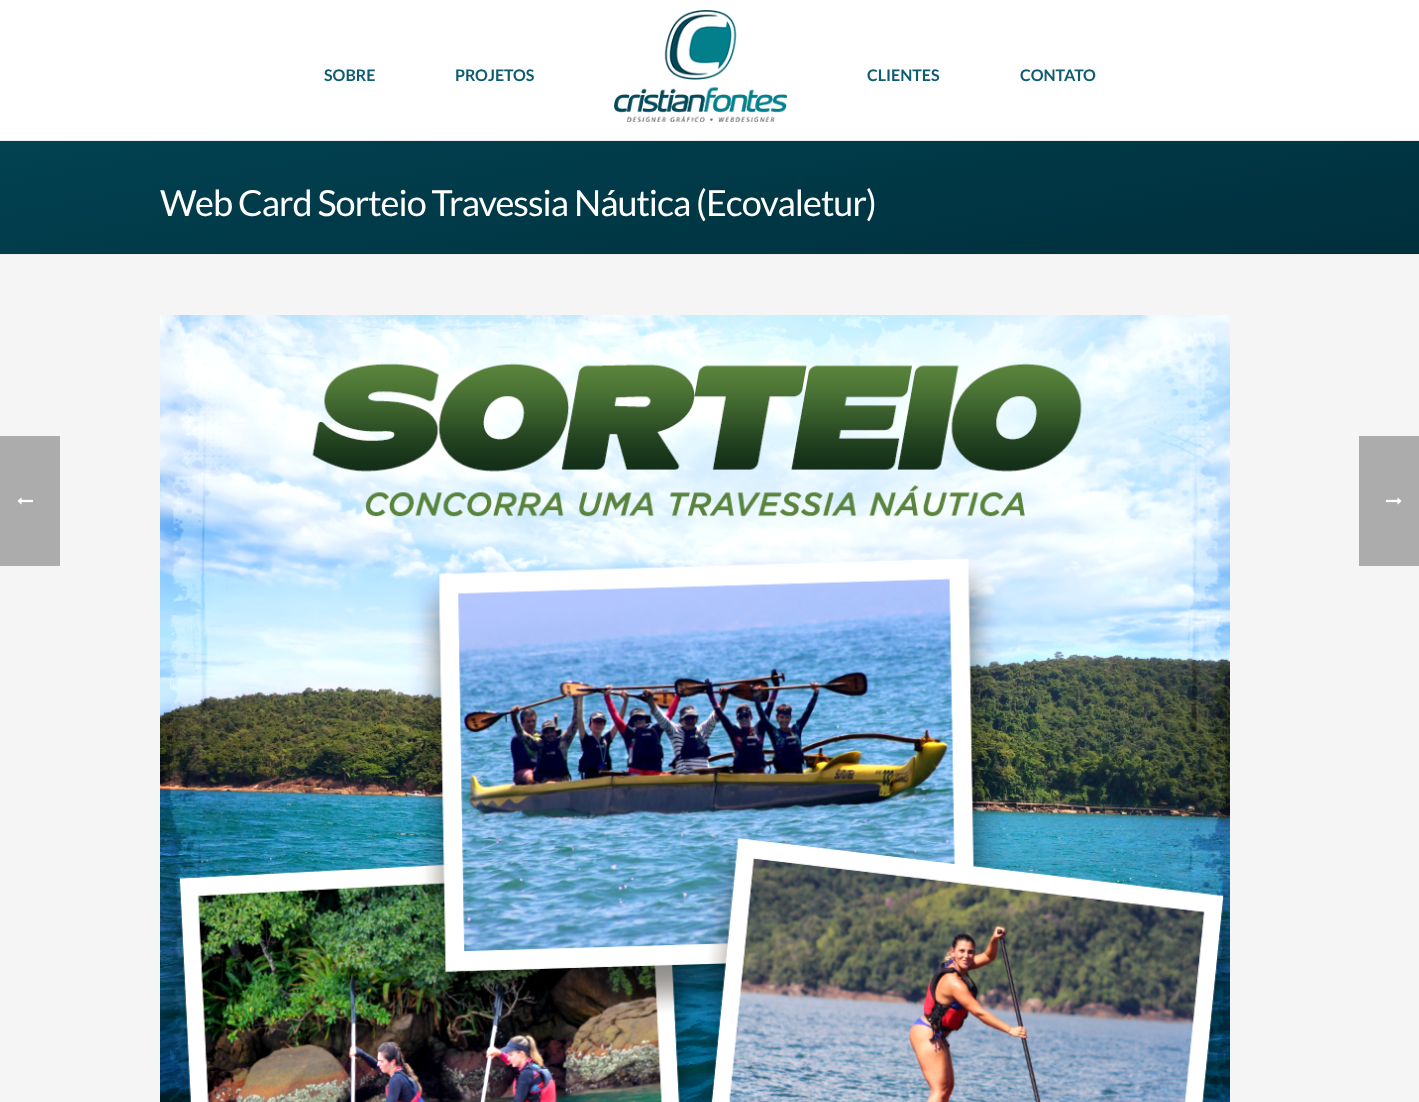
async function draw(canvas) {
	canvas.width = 1419;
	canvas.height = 1102;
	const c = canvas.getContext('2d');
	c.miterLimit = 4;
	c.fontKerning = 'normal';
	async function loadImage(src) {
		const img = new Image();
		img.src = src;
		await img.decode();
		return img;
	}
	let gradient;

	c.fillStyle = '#f5f5f5';
	c.fillRect(0, 0, 1419, 1102);
	gradient = c.createLinearGradient(665, -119, 754, 373);
	gradient.addColorStop(0, '#024959');
	gradient.addColorStop(1, '#002f3c');
	c.fillStyle = gradient;
	c.fillRect(0, 141, 1419, 113);
	for (const [x, y, w, h, color] of [
		[0, 254, 1419, 1, '#ededed'],
		[0, 140, 1419, 1, '#ededed'],
		[0, 0, 1419, 140, '#fff'],
	]) {
		c.fillStyle = color;
		c.fillRect(x, y, w, h);
	}
	c.font = 'bold 16px Lato';
	c.fillStyle = '#0e5c70';
	c.fillText('SOBRE', 324, 81);
	c.fillText('PROJETOS', 455, 81);
	c.drawImage(await loadImage('img1.png'), 614, 10, 173, 112);
	c.fillText('CLIENTES', 867, 81);
	c.fillText('CONTATO', 1020, 81);
	c.letterSpacing = '-1px';
	c.font = '36px Lato';
	c.fillStyle = '#fff';
	c.fillText('Web Card Sorteio Travessia Náutica (Ecovaletur)', 160, 216);
	c.drawImage(await loadImage('img2.png'), 160, 315, 1070, 787);
	c.fillStyle = '#acacac';
	c.fillRect(0, 436, 60, 130);
	c.drawImage(await loadImage('img3.png'), 17, 497, 16, 8);
	c.fillRect(1359, 436, 60, 130);
	c.drawImage(await loadImage('img4.png'), 1386, 497, 16, 8);
}

draw(document.querySelector('canvas'));
